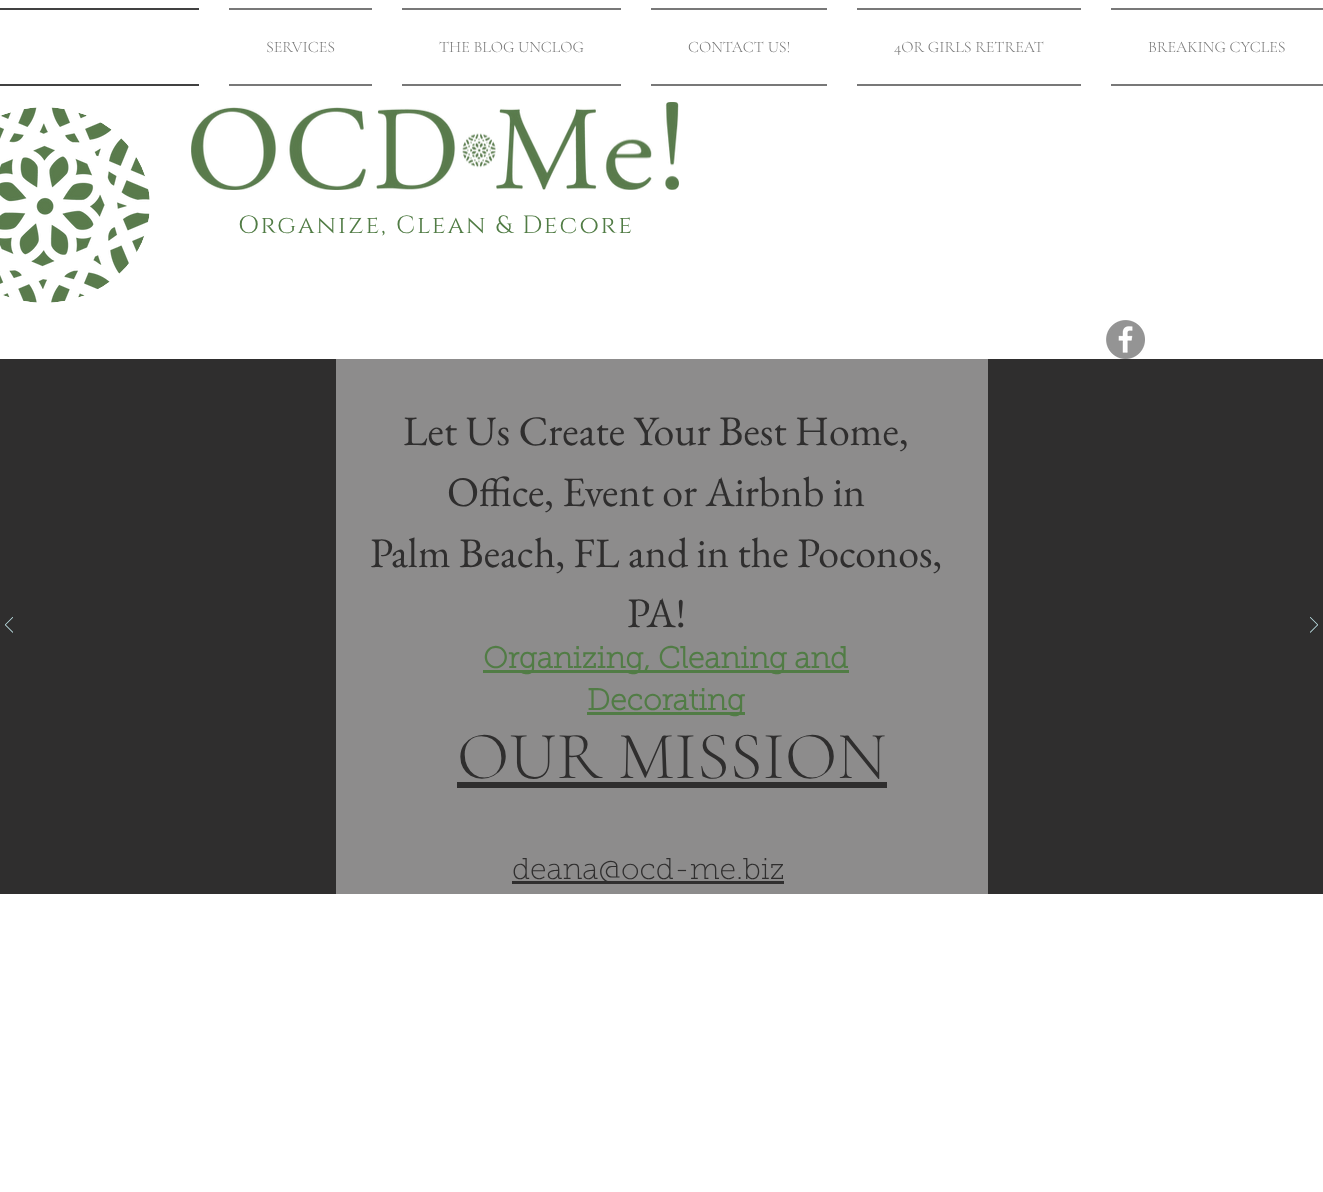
async function draw(canvas) {
	canvas.width = 1323;
	canvas.height = 1192;
	const c = canvas.getContext('2d');
	c.miterLimit = 4;
	c.fontKerning = 'normal';
	async function loadImage(src) {
		const img = new Image();
		img.src = src;
		await img.decode();
		return img;
	}

	c.fillStyle = '#fff';
	c.fillRect(0, 0, 1323, 1192);
	for (const [x, y, w, h, color] of [
		[0, 8, 199, 2, '#414141'],
		[0, 84, 199, 2, '#414141'],
		[229, 8, 143, 2, '#787878'],
		[229, 84, 143, 2, '#787878'],
	]) {
		c.fillStyle = color;
		c.fillRect(x, y, w, h);
	}
	c.font = '300 16px Cormorant Garamond';
	c.fillText('SERVICES', 266, 52);
	c.fillRect(402, 8, 219, 2);
	c.fillRect(402, 84, 219, 2);
	c.fillText('THE BLOG UNCLOG', 439, 52);
	c.fillRect(651, 8, 176, 2);
	c.fillRect(651, 84, 176, 2);
	c.fillText('CONTACT US!', 688, 52);
	c.fillRect(857, 8, 224, 2);
	c.fillRect(857, 84, 224, 2);
	c.fillText('4OR GIRLS RETREAT', 894, 52);
	c.fillRect(1111, 8, 212, 2);
	c.fillRect(1111, 84, 212, 2);
	c.fillText('BREAKING CYCLES', 1148, 52);
	c.drawImage(await loadImage('img1.png'), 0, 107, 150, 196);
	c.drawImage(await loadImage('img2.png'), 191, 102, 488, 88);
	c.letterSpacing = '2px';
	c.font = '25px Cinzel';
	c.fillStyle = '#517c45';
	c.fillText('Organize, Clean & Decore', 238, 233);
	c.drawImage(await loadImage('img3.png'), 1106, 320, 39, 39);
	c.fillStyle = '#2f2e2e';
	c.fillRect(0, 359, 1323, 535);
	c.drawImage(await loadImage('img4.png'), 5, 617, 8, 16);
	c.fillStyle = '#8d8c8c';
	c.fillRect(336, 359, 652, 535);
	c.letterSpacing = '0px';
	c.font = '42px EB Garamond';
	c.fillStyle = '#2f2e2e';
	for (const [text, x, y] of [
		['Let Us Create Your Best Home,', 403, 445],
		['Office, Event or Airbnb in', 447, 506],
		['Palm Beach, FL and in the Poconos,', 370, 567],
		['PA!', 627, 627],
	]) {
		c.fillText(text, x, y);
	}
	c.font = '300 68px Cormorant Garamond';
	c.fillText('OUR MISSION', 457, 778);
	c.fillRect(457, 782, 430, 6);
	c.fillStyle = '#517c45';
	c.fillRect(483, 670, 366, 3);
	c.font = 'bold 30px "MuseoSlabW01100"';
	c.fillText('Organizing, Cleaning and', 483, 668);
	c.fillRect(587, 712, 158, 3);
	c.fillText('Decorating', 587, 710);
	c.fillStyle = '#2f2e2e';
	c.fillRect(512, 881, 272, 3);
	c.font = '100 30px "MuseoSlabW01100"';
	c.fillText('deana@ocd-me.biz', 512, 879);
	c.drawImage(await loadImage('img5.png'), 1310, 617, 8, 16);
}

draw(document.querySelector('canvas'));
